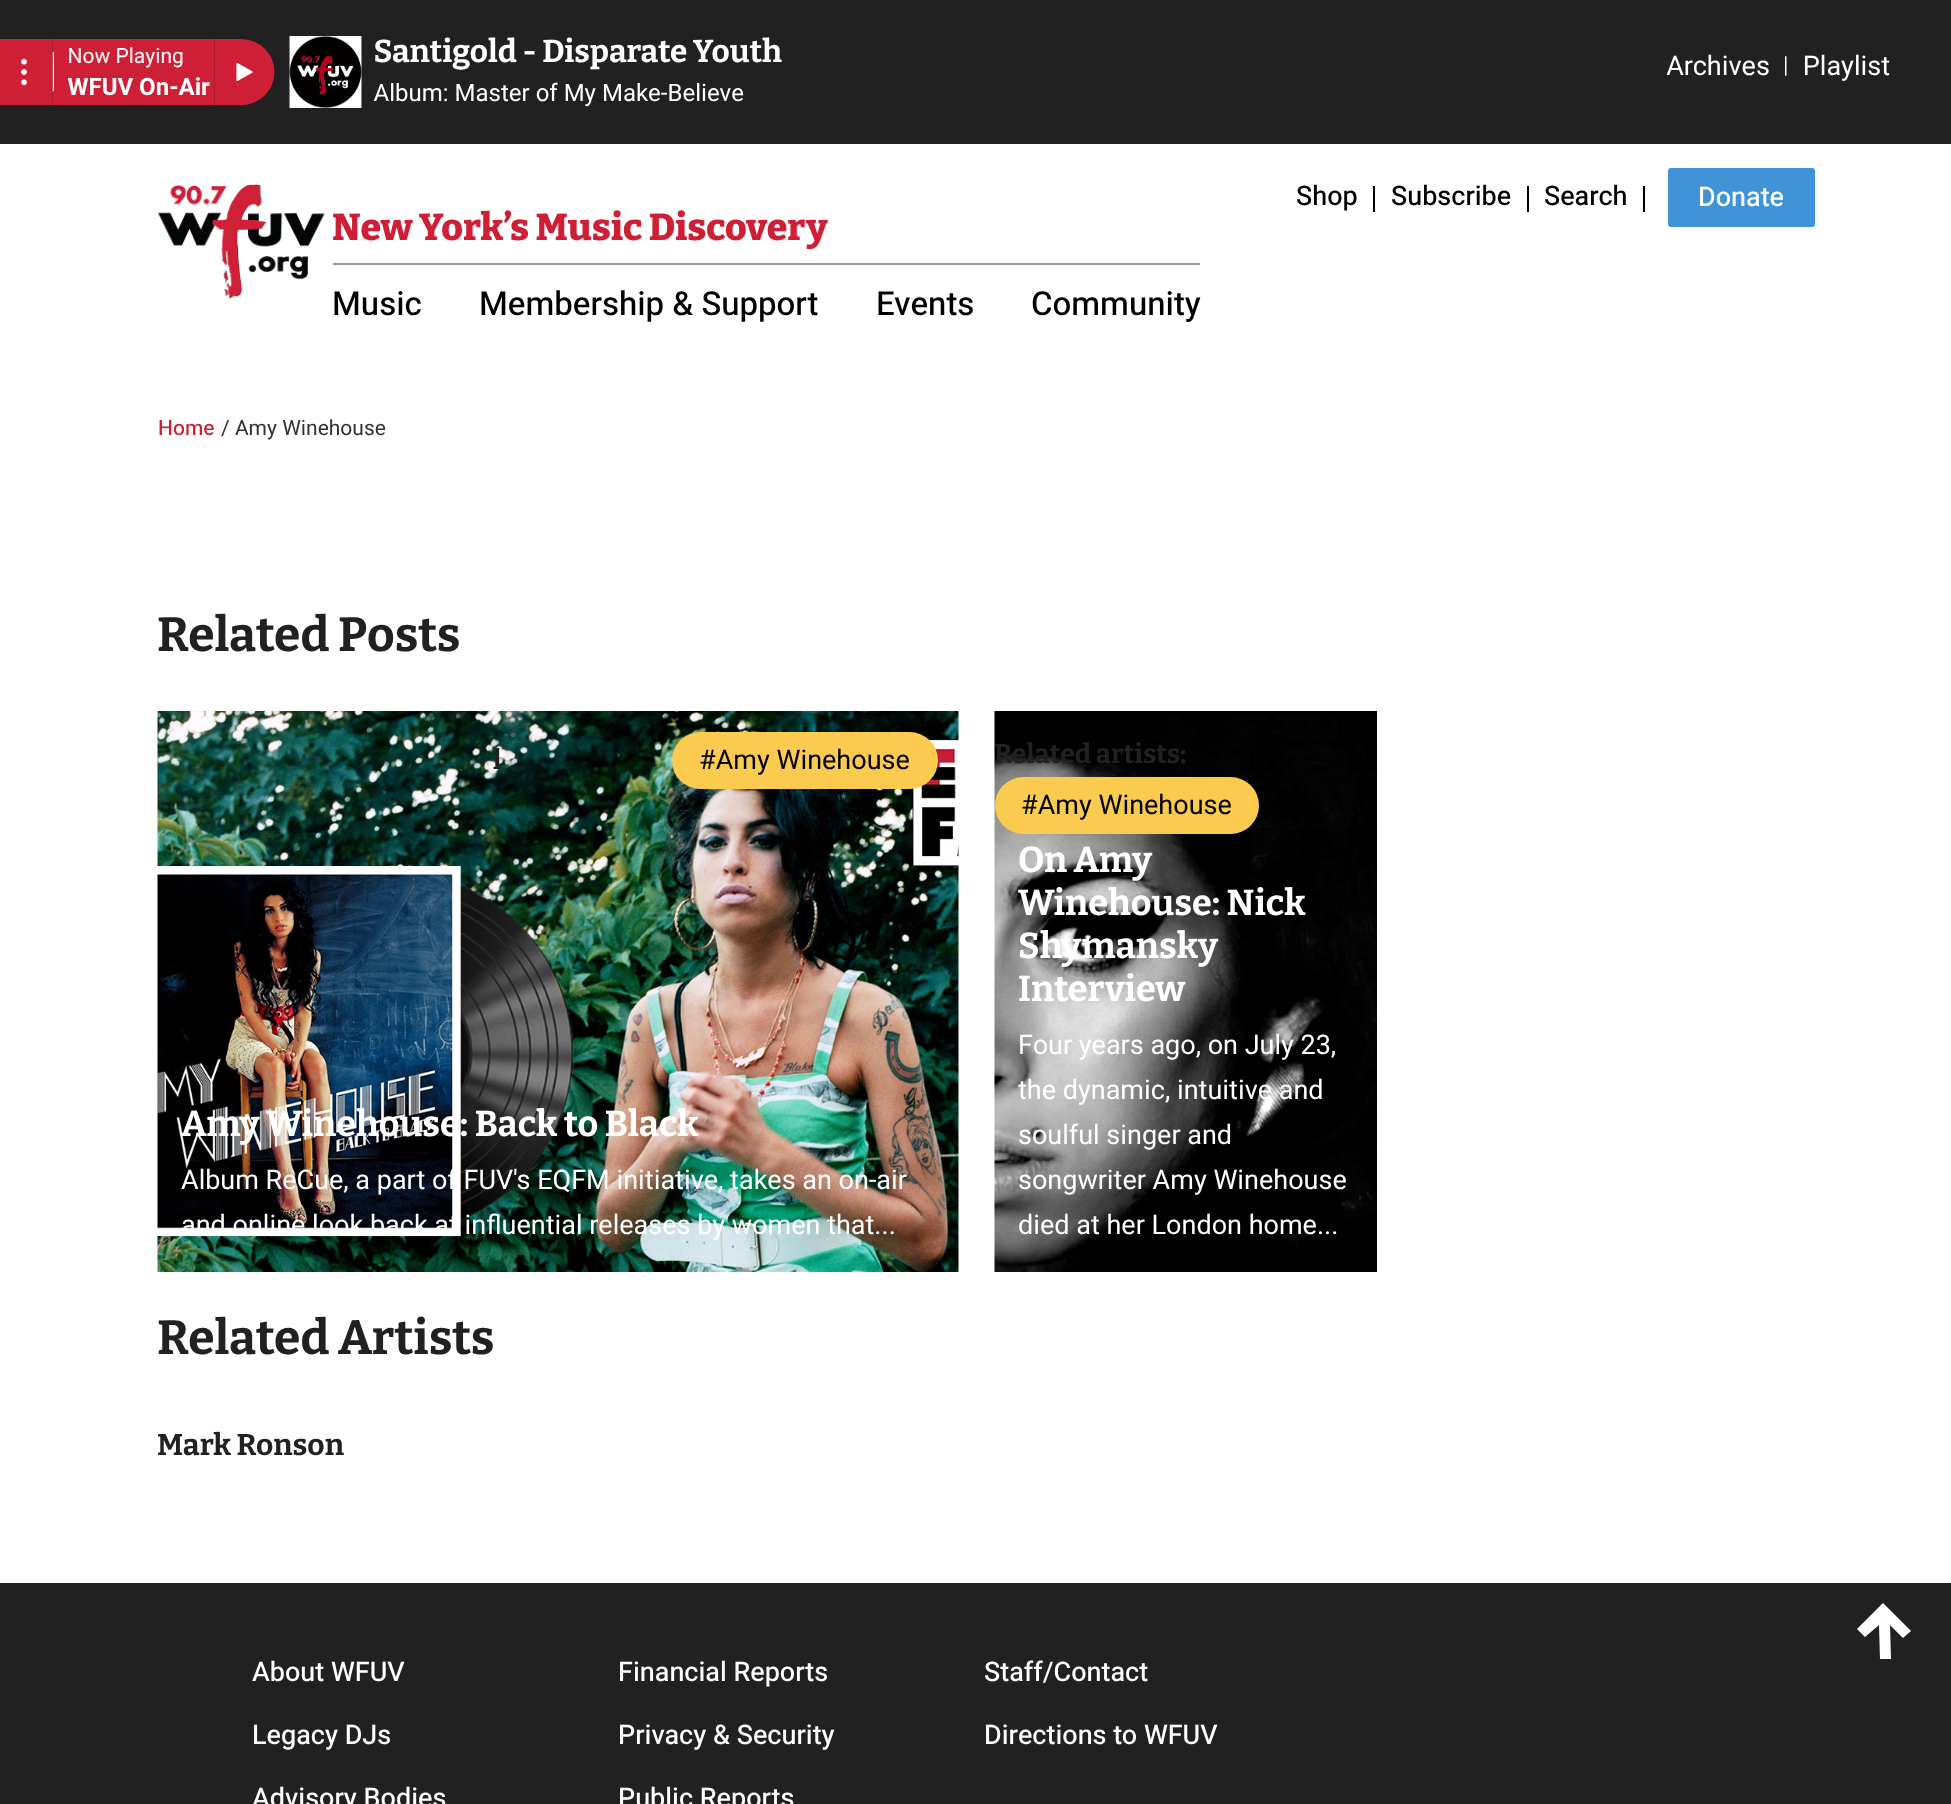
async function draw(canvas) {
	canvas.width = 1951;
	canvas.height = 1804;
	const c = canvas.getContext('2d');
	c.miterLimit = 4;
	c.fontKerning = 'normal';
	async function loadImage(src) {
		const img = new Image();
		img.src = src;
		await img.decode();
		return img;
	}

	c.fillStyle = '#fff';
	c.fillRect(0, 0, 1951, 1804);
	c.drawImage(await loadImage('img1.png'), 0, 0, 1951, 144);
	c.drawImage(await loadImage('img2.png'), 158, 184, 167, 115);
	c.font = '500 27px Heebo';
	c.fillStyle = '#000';
	c.fillText('Shop', 1296, 205);
	c.fillRect(1373, 186, 2, 26);
	c.fillText('Subscribe', 1391, 205);
	c.fillRect(1527, 186, 2, 26);
	c.fillText('Search', 1544, 205);
	c.fillRect(1643, 186, 2, 26);
	c.fillStyle = '#4093d6';
	c.beginPath();
	c.roundRect(1668, 168, 147, 59, 3);
	c.fill();
	c.fillStyle = '#fff';
	c.fillText('Donate', 1698, 206);
	c.fillStyle = '#979797';
	c.fillRect(333, 263, 867, 2);
	c.font = '800 37.5px Bitter';
	c.fillStyle = '#cf1f37';
	c.fillText('New York’s Music Discovery', 332, 240);
	c.font = '500 33px Heebo';
	c.fillStyle = '#000';
	for (const [text, x, y] of [
		['Music', 332, 315],
		['Membership & Support', 479, 315],
		['Events', 876, 315],
		['Community', 1031, 315],
	]) {
		c.fillText(text, x, y);
	}
	c.font = '500 21px Heebo';
	c.fillStyle = '#cf1f37';
	c.fillText('Home', 158, 435);
	c.font = '21px Heebo';
	c.fillStyle = '#323232';
	c.fillText('/ Amy Winehouse', 221, 435);
	c.font = 'bold 48px Bitter';
	c.fillStyle = '#212121';
	c.fillText('Related Posts', 157, 651);
	c.drawImage(await loadImage('img3.png'), 157, 711, 802, 561);
	c.font = 'bold 27px Bitter';
	c.fillText('l', 493, 769);
	c.fillStyle = '#facb4f';
	c.beginPath();
	c.roundRect(672, 732, 266, 57, 28.5);
	c.fill();
	c.font = '27px Heebo';
	c.fillStyle = '#000';
	c.fillText('#Amy Winehouse', 699, 769);
	c.font = 'bold 36px Bitter';
	c.fillStyle = '#fff';
	c.fillText('Amy Winehouse: Back to Black', 181, 1136);
	c.font = '27px Heebo';
	c.fillText('Album ReCue, a part of FUV\'s EQFM initiative, takes an on-air', 181, 1189);
	c.fillText('and online look back at influential releases by women that...', 181, 1234);
	c.drawImage(await loadImage('img4.png'), 994, 711, 383, 561);
	c.font = 'bold 27px Bitter';
	c.fillStyle = '#212121';
	c.fillText('Related artists:', 994, 763);
	c.fillStyle = '#facb4f';
	c.beginPath();
	c.roundRect(995, 777, 264, 57, 28.5);
	c.fill();
	c.font = '27px Heebo';
	c.fillStyle = '#000';
	c.fillText('#Amy Winehouse', 1021, 814);
	c.font = 'bold 36px Bitter';
	c.fillStyle = '#fff';
	for (const [text, x, y] of [
		['On Amy', 1018, 872],
		['Winehouse: Nick', 1018, 915],
		['Shymansky', 1018, 958],
		['Interview', 1018, 1001],
	]) {
		c.fillText(text, x, y);
	}
	c.font = '27px Heebo';
	for (const [text, x, y] of [
		['Four years ago, on July 23,', 1018, 1054],
		['the dynamic, intuitive and', 1018, 1099],
		['soulful singer and', 1018, 1144],
		['songwriter Amy Winehouse', 1018, 1189],
		['died at her London home...', 1018, 1234],
	]) {
		c.fillText(text, x, y);
	}
	c.font = 'bold 48px Bitter';
	c.fillStyle = '#212121';
	c.fillText('Related Artists', 157, 1354);
	c.font = 'bold 30px Bitter';
	c.fillText('Mark Ronson', 157, 1455);
	c.fillRect(0, 1583, 1951, 221);
	c.fillStyle = '#fff';
	c.beginPath();
	c.moveTo(1883, 1603);
	c.lineTo(1911, 1631);
	c.lineTo(1903, 1638);
	c.lineTo(1890, 1625);
	c.lineTo(1891, 1659);
	c.lineTo(1880, 1659);
	c.lineTo(1879, 1625);
	c.lineTo(1865, 1637);
	c.lineTo(1857, 1629);
	c.closePath();
	c.fill();
	c.font = '500 27px Heebo';
	for (const [text, x, y] of [
		['About WFUV', 252, 1681],
		['Financial Reports', 618, 1681],
		['Staff/Contact', 984, 1681],
		['Legacy DJs', 252, 1744],
		['Privacy & Security', 618, 1744],
		['Directions to WFUV', 984, 1744],
		['Advisory Bodies', 252, 1807],
		['Public Reports', 618, 1807],
	]) {
		c.fillText(text, x, y);
	}
}

draw(document.querySelector('canvas'));
